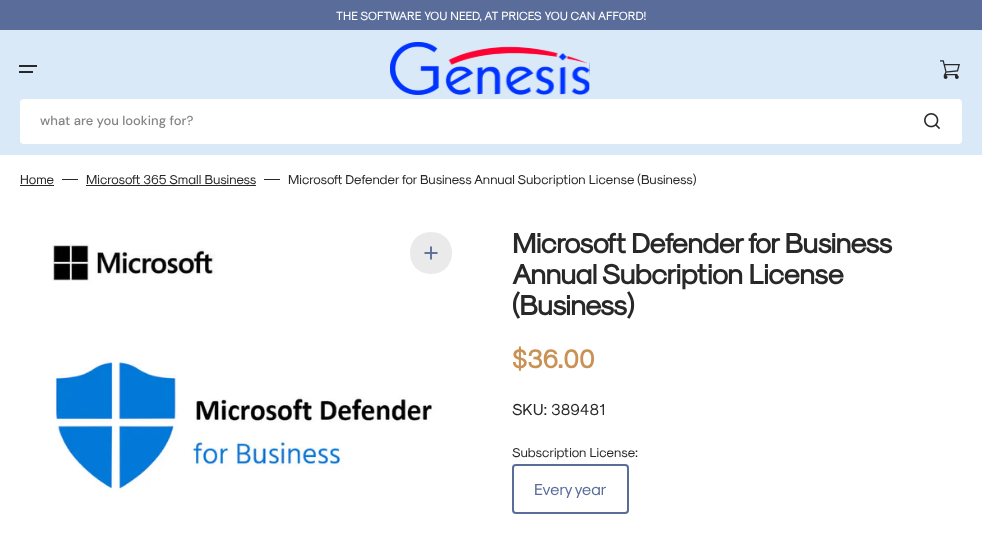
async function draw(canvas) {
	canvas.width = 982;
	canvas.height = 533;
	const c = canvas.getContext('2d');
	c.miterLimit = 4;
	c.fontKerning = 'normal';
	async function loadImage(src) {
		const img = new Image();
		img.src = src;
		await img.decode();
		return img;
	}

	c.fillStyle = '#fff';
	c.fillRect(0, 0, 982, 533);
	c.fillStyle = '#5a6c9a';
	c.fillRect(0, 0, 982, 30);
	c.font = '12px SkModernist';
	c.fillStyle = '#fff';
	c.fillText('THE SOFTWARE YOU NEED, AT PRICES YOU CAN AFFORD!', 336, 20);
	for (const [x, y, w, h, color] of [
		[0, 30, 982, 125, '#d9e9f8'],
		[19, 65, 18, 2, '#282828'],
		[19, 71, 14, 2, '#282828'],
	]) {
		c.fillStyle = color;
		c.fillRect(x, y, w, h);
	}
	c.drawImage(await loadImage('img1.png'), 390, 42, 200, 53);
	c.drawImage(await loadImage('img2.png'), 940, 60, 20, 19);
	c.fillStyle = '#fff';
	c.beginPath();
	c.roundRect(20, 99, 942, 45, 4);
	c.fill();
	c.font = '500 13px DM Sans';
	c.fillStyle = '#848484';
	c.fillText('what are you looking for?', 40, 125);
	c.drawImage(await loadImage('img3.png'), 924, 113, 17, 17);
	c.font = '13px SkModernist';
	c.fillStyle = '#282828';
	c.fillText('Home', 20, 184);
	c.fillRect(20, 185, 34, 1);
	c.fillRect(62, 179, 16, 1);
	c.fillText('Microsoft 365 Small Business', 86, 184);
	c.fillRect(86, 185, 170, 1);
	c.fillRect(264, 179, 16, 1);
	c.fillText('Microsoft Defender for Business Annual Subcription License (Business)', 288, 184);
	c.drawImage(await loadImage('img4.png'), 20, 212, 452, 321);
	c.fillStyle = '#eaeaea';
	c.beginPath();
	c.moveTo(431, 232);
	c.bezierCurveTo(459, 232, 459, 274, 431, 274);
	c.bezierCurveTo(403, 274, 403, 232, 431, 232);
	c.closePath();
	c.fill();
	c.drawImage(await loadImage('img5.png'), 424, 246, 14, 14);
	c.letterSpacing = '-0.55px';
	c.font = 'bold 28px SkModernist';
	c.fillStyle = '#282828';
	for (const [text, x, y] of [
		['Microsoft Defender for Business', 512, 253],
		['Annual Subcription License', 512, 284],
		['(Business)', 512, 315],
	]) {
		c.fillText(text, x, y);
	}
	c.letterSpacing = '0px';
	c.font = 'bold 26px SkModernist';
	c.fillStyle = '#c99154';
	c.fillText('$36.00', 512, 368);
	c.font = '16px SkModernist';
	c.fillStyle = '#282828';
	c.fillText('SKU: 389481', 512, 415);
	c.font = '13px SkModernist';
	c.fillText('Subscription License:', 512, 457);
	c.beginPath();
	c.roundRect(513, 465, 115, 48, 3);
	c.strokeStyle = '#5a6c9a';
	c.lineWidth = 2;
	c.stroke();
	c.font = '16px SkModernist';
	c.fillStyle = '#5a6c9a';
	c.fillText('Every year', 534, 495);
}

draw(document.querySelector('canvas'));
